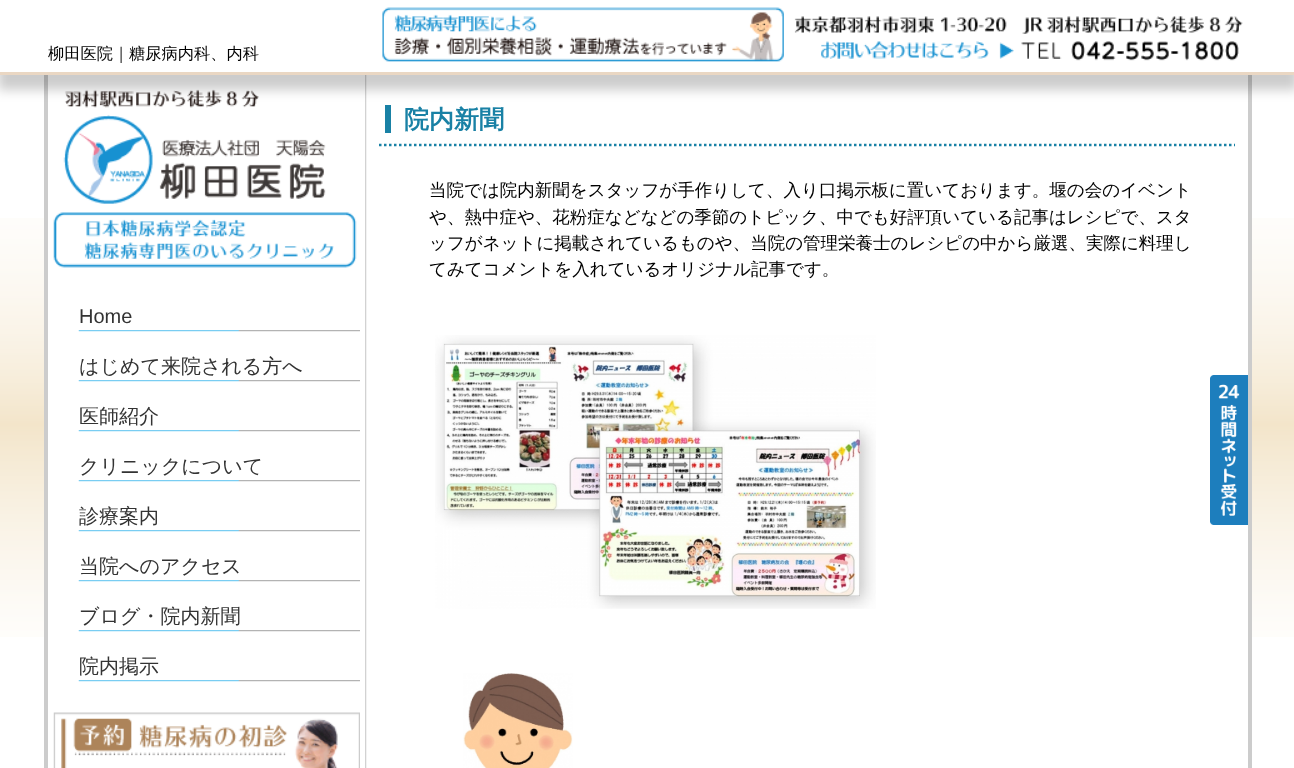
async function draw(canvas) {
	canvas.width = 1294;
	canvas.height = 768;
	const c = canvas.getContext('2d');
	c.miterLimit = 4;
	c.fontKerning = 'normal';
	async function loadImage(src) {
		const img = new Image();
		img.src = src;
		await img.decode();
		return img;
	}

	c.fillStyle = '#fff';
	c.fillRect(0, 0, 1294, 768);
	c.drawImage(await loadImage('img1.png'), 0, 218, 1294, 419);
	c.fillRect(48, 218, 1200, 419);
	c.drawImage(await loadImage('img3.png'), 365, 75, 2, 693);
	for (const [x, y, w, h, color] of [
		[1248, 75, 4, 693, '#ccc'],
		[44, 75, 4, 693, '#ccc'],
		[385, 105, 6, 28, '#1981a5'],
	]) {
		c.fillStyle = color;
		c.fillRect(x, y, w, h);
	}
	c.drawImage(await loadImage('img6.png'), 53, 89, 304, 179);
	c.fillStyle = '#00000033';
	c.filter = 'blur(6px)';
	c.beginPath();
	c.rect(-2, 10, 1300, 80);
	c.fill();
	c.filter = 'none';
	c.fillStyle = '#fff';
	c.fillRect(0, 0, 1294, 72);
	c.fillStyle = '#ead7c3';
	c.fillRect(0, 72, 1294, 3);
	c.font = '500 16.25px WenQuanYi Zen Hei';
	c.fillStyle = '#000';
	c.fillText('柳田医院｜糖尿病内科、内科', 48, 59);
	c.drawImage(await loadImage('img2.png'), 382, 7, 861, 55);
	c.beginPath();
	c.moveTo(379, 145);
	c.lineTo(1235, 145);
	c.strokeStyle = '#1981a5';
	c.lineWidth = 2.5;
	c.setLineDash([2.5, 2.5]);
	c.stroke();
	c.font = 'bold 25px WenQuanYi Zen Hei';
	c.fillStyle = '#1981a5';
	c.fillText('院内新聞', 404, 128);
	c.font = '500 17.5px WenQuanYi Zen Hei';
	c.fillStyle = '#000';
	for (const [text, x, y] of [
		['当院では院内新聞をスタッフが手作りして、入り口掲示板に置いております。堰の会のイベント', 429, 196],
		['や、熱中症や、花粉症などなどの季節のトピック、中でも好評頂いている記事はレシピで、スタ', 429, 223],
		['ッフがネットに掲載されているものや、当院の管理栄養士のレシピの中から厳選、実際に料理し', 429, 249],
		['てみてコメントを入れているオリジナル記事です。', 429, 275],
	]) {
		c.fillText(text, x, y);
	}
	c.drawImage(await loadImage('img4.png'), 435, 335, 441, 274);
	c.drawImage(await loadImage('img5.png'), 463, 673, 110, 95);
	c.drawImage(await loadImage('img7.png'), 78, 330, 282, 2);
	c.font = '20px Liberation Sans';
	c.fillStyle = '#333';
	c.fillText('Home', 79, 323);
	c.drawImage(await loadImage('img7.png'), 78, 380, 282, 2);
	c.font = '500 20px WenQuanYi Zen Hei';
	c.fillText('はじめて来院される方へ', 79, 373);
	c.drawImage(await loadImage('img7.png'), 78, 430, 282, 2);
	c.fillText('医師紹介', 79, 423);
	c.drawImage(await loadImage('img7.png'), 78, 480, 282, 2);
	c.fillText('クリニックについて', 79, 473);
	c.drawImage(await loadImage('img7.png'), 78, 530, 282, 2);
	c.fillText('診療案内', 79, 523);
	c.drawImage(await loadImage('img7.png'), 78, 580, 282, 2);
	c.fillText('当院へのアクセス', 79, 573);
	c.drawImage(await loadImage('img7.png'), 78, 630, 282, 2);
	c.fillText('ブログ・院内新聞', 79, 623);
	c.drawImage(await loadImage('img7.png'), 78, 680, 282, 2);
	c.fillText('院内掲示', 79, 673);
	c.drawImage(await loadImage('img8.png'), 53, 712, 307, 56);
	c.drawImage(await loadImage('img9.png'), 1210, 375, 38, 150);
}

draw(document.querySelector('canvas'));
